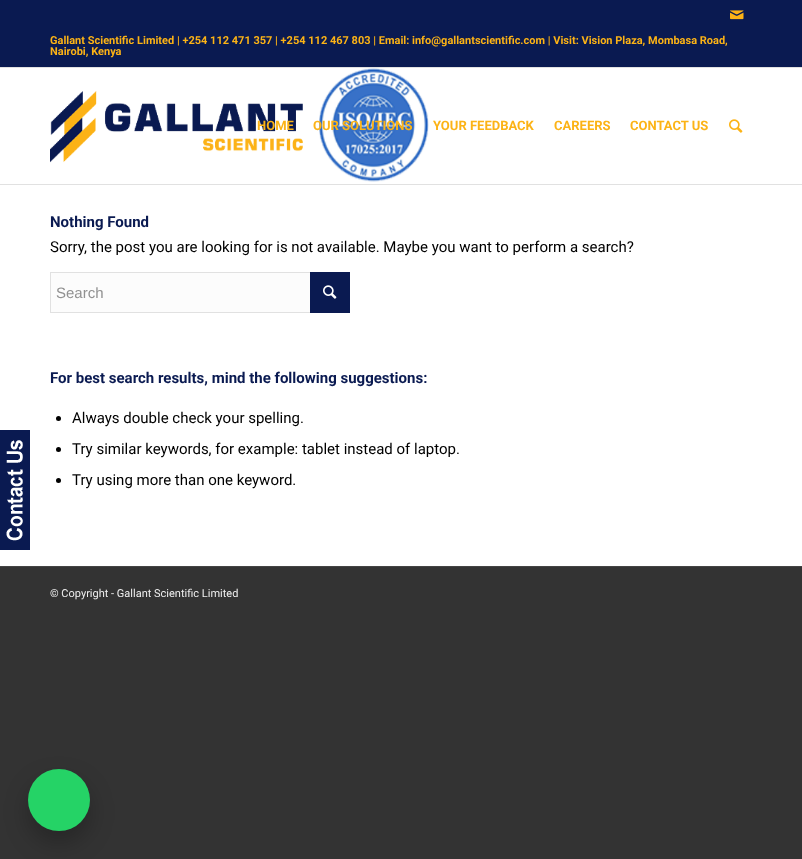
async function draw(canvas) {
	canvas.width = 802;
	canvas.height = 859;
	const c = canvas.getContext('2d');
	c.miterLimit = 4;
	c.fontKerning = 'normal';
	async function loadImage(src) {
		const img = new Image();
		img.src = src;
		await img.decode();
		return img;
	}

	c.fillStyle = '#333';
	c.fillRect(0, 0, 802, 859);
	c.fillStyle = '#fff';
	c.fillRect(0, 68, 802, 498);
	c.fillStyle = '#0a1a51';
	c.fillRect(0, 430, 30, 120);
	c.drawImage(await loadImage('img1.png'), 6, 440, 17, 101);
	c.fillRect(0, 0, 802, 67);
	c.fillStyle = '#e1e1e1';
	c.fillRect(0, 67, 802, 1);
	c.drawImage(await loadImage('img2.png'), 730, 10, 14, 10);
	c.font = 'bold 11px Roboto';
	c.fillStyle = '#fcb316';
	c.fillText('Gallant Scientific Limited | +254 112 471 357 | +254 112 467 803 | Email: info@gallantscientific.com | Visit: Vision Plaza, Mombasa Road,', 50, 44);
	c.fillText('Nairobi, Kenya', 50, 55);
	c.fillStyle = '#e1e1e1';
	c.fillRect(0, 184, 802, 1);
	c.drawImage(await loadImage('img3.png'), 50, 68, 379, 114);
	c.font = 'bold 13px Roboto';
	c.fillStyle = '#fcb316';
	for (const [text, x, y] of [
		['HOME', 257, 130],
		['OUR SOLUTIONS', 313, 130],
		['YOUR FEEDBACK', 433, 130],
		['CAREERS', 554, 130],
		['CONTACT US', 630, 130],
	]) {
		c.fillText(text, x, y);
	}
	c.drawImage(await loadImage('img4.png'), 729, 119, 14, 14);
	c.font = 'bold 15px Roboto';
	c.fillStyle = '#0a1a51';
	c.fillText('Nothing Found', 50, 227);
	c.font = '15px Roboto';
	c.fillStyle = '#000';
	c.fillText('Sorry, the post you are looking for is not available. Maybe you want to perform a search?', 50, 252);
	c.fillStyle = '#fcfcfc';
	c.fillRect(51, 273, 259, 39);
	c.strokeStyle = '#e1e1e1';
	c.strokeRect(50.5, 272.5, 299, 40);
	c.font = '15px Liberation Sans';
	c.fillStyle = '#919191';
	c.fillText('Search', 56, 298);
	c.fillStyle = '#0a1a51';
	c.fillRect(310, 272, 40, 41);
	c.drawImage(await loadImage('img5.png'), 323, 285, 14, 14);
	c.font = 'bold 15px Roboto';
	c.fillText('For best search results, mind the following suggestions:', 50, 383);
	c.fillStyle = '#000';
	c.beginPath();
	c.arc(58.5, 418.5, 2.5, 0, 2 * Math.PI);
	c.fill();
	c.font = '15px Roboto';
	c.fillText('Always double check your spelling.', 72, 423);
	c.beginPath();
	c.arc(58.5, 449.5, 2.5, 0, 2 * Math.PI);
	c.fill();
	c.fillText('Try similar keywords, for example: tablet instead of laptop.', 72, 454);
	c.beginPath();
	c.arc(58.5, 480.5, 2.5, 0, 2 * Math.PI);
	c.fill();
	c.fillText('Try using more than one keyword.', 72, 485);
	c.fillStyle = '#444';
	c.fillRect(0, 566, 802, 1);
	c.font = '11px Roboto';
	c.fillStyle = '#eee';
	c.fillText('© Copyright - Gallant Scientific Limited', 50, 597);
	c.fillStyle = '#00000040';
	c.filter = 'blur(12px)';
	c.beginPath();
	c.roundRect(28, 781, 62, 62, 31);
	c.fill();
	c.filter = 'none';
	c.fillStyle = '#25d366';
	c.beginPath();
	c.arc(59, 800, 31, 0, 2 * Math.PI);
	c.fill();
}

draw(document.querySelector('canvas'));
